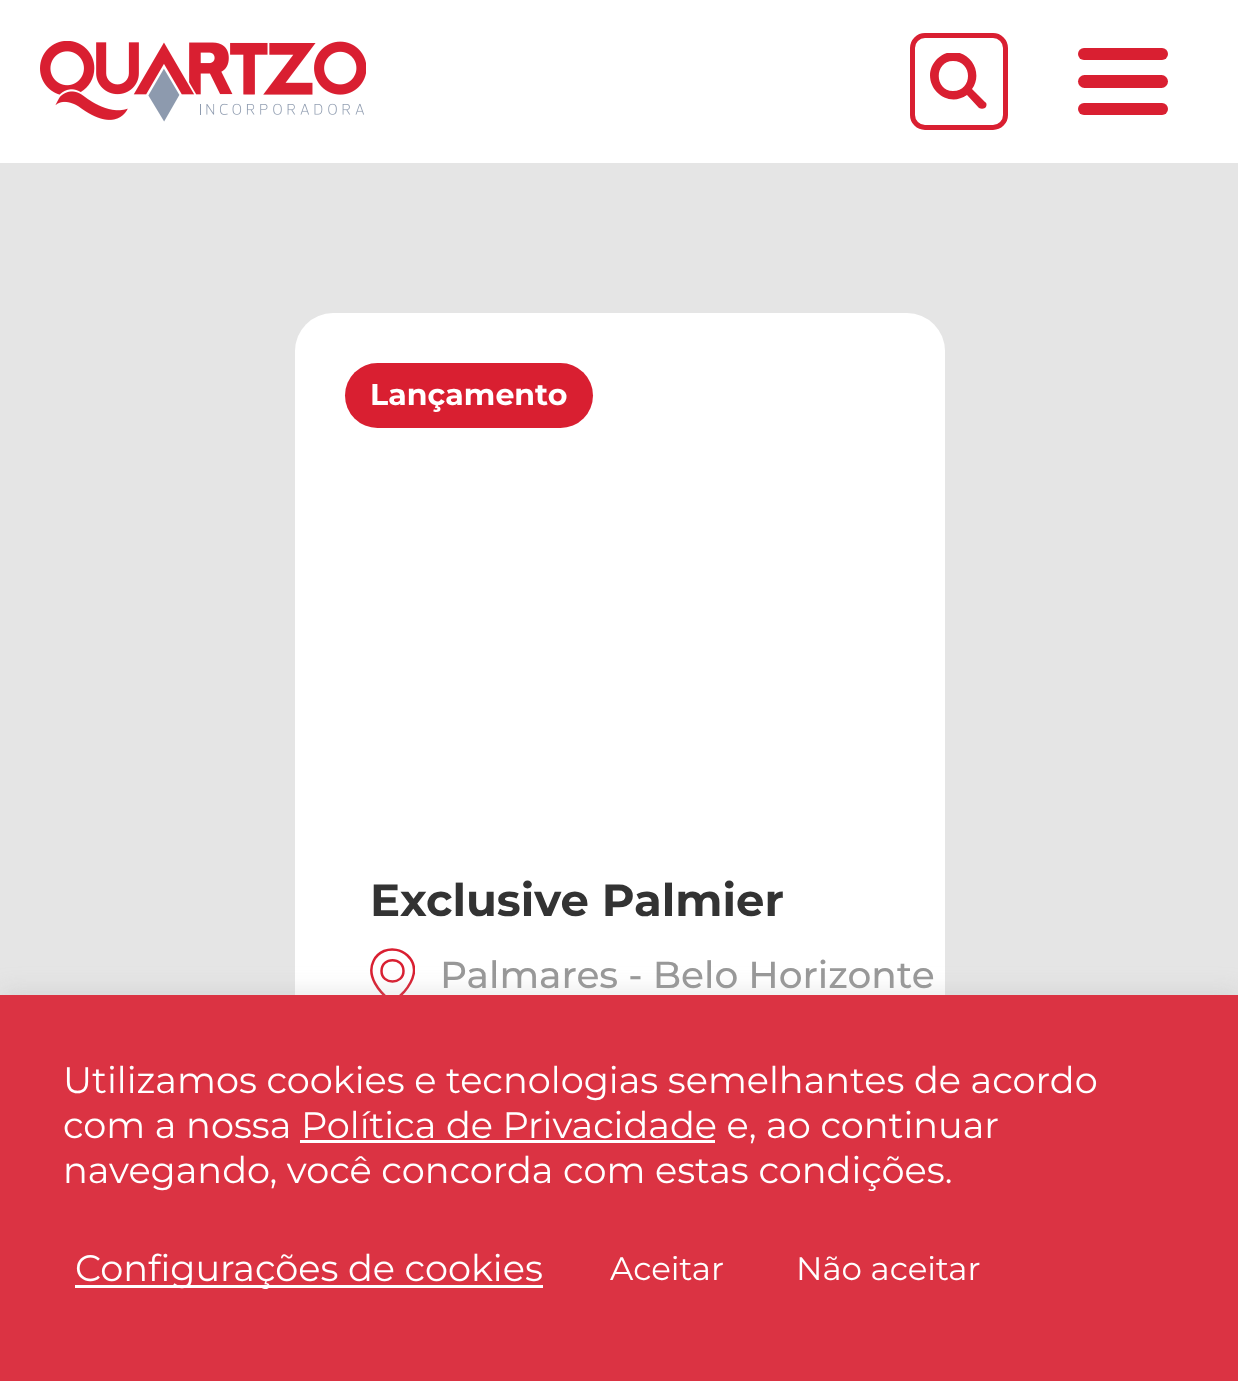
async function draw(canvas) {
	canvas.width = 1238;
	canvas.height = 1381;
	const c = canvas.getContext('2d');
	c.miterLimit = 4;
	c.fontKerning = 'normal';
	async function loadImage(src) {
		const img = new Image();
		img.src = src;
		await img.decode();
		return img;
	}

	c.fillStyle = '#fff';
	c.fillRect(0, 0, 1238, 1381);
	c.drawImage(await loadImage('img1.png'), 40, 41, 326, 81);
	c.beginPath();
	c.roundRect(912.5, 35.5, 93, 92, 12.5);
	c.strokeStyle = '#d91f31';
	c.lineWidth = 5;
	c.stroke();
	c.save();
	c.beginPath();
	c.rect(930, 53, 58, 57);
	c.clip();
	c.fillStyle = '#d91f31';
	c.beginPath();
	c.moveTo(953, 52);
	c.bezierCurveTo(947, 52, 941, 55, 937, 59);
	c.bezierCurveTo(917, 80, 944, 111, 967, 95);
	c.lineTo(979, 108);
	c.bezierCurveTo(981, 109, 983, 109, 985, 108);
	c.bezierCurveTo(987, 106, 987, 103, 985, 102);
	c.lineTo(972, 89);
	c.bezierCurveTo(983, 74, 972, 52, 953, 52);
	c.closePath();
	c.moveTo(953, 61);
	c.bezierCurveTo(973, 61, 973, 91, 953, 91);
	c.bezierCurveTo(934, 91, 934, 61, 953, 61);
	c.closePath();
	c.fill();
	c.restore();
	c.fillStyle = '#d91f31';
	c.beginPath();
	c.roundRect(1078, 48, 90, 12, 6);
	c.fill();
	c.beginPath();
	c.roundRect(1078, 75, 90, 13, 6.5);
	c.fill();
	c.beginPath();
	c.roundRect(1078, 103, 90, 12, 6);
	c.fill();
	c.fillStyle = '#e5e5e5';
	c.fillRect(0, 163, 1238, 832);
	c.fillStyle = '#fff';
	c.beginPath();
	c.roundRect(295, 313, 650, 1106, 38);
	c.fill();
	c.fillStyle = '#d91f31';
	c.beginPath();
	c.roundRect(345, 363, 248, 65, 32.5);
	c.fill();
	c.font = 'bold 30px Montserrat';
	c.fillStyle = '#fff';
	c.fillText('Lançamento', 370, 405);
	c.font = 'bold 45px Montserrat';
	c.fillStyle = '#333';
	c.fillText('Exclusive Palmier', 370, 916);
	c.save();
	c.beginPath();
	c.rect(370, 948, 45, 57);
	c.clip();
	c.beginPath();
	c.moveTo(390.5, 1001);
	c.bezierCurveTo(393.5, 1003.5, 396.5, 999.5, 398, 998);
	c.lineTo(404, 992);
	c.bezierCurveTo(413, 981.5, 419.5, 967, 407.5, 955.5);
	c.bezierCurveTo(401, 949.5, 392, 948, 384, 951);
	c.bezierCurveTo(379.5, 953, 375.5, 956.5, 373.5, 961);
	c.bezierCurveTo(366, 976.5, 379.5, 992, 390.5, 1001);
	c.closePath();
	c.moveTo(381.5, 971);
	c.bezierCurveTo(381.5, 956.5, 403.5, 956.5, 403.5, 971);
	c.bezierCurveTo(403.5, 985, 381.5, 985, 381.5, 971);
	c.closePath();
	c.lineWidth = 2.5;
	c.stroke();
	c.restore();
	c.font = '500 37.5px Montserrat';
	c.fillStyle = '#989898';
	c.fillText('Palmares - Belo Horizonte', 440, 988);
	c.fillStyle = '#acabab4d';
	c.filter = 'blur(12.5px)';
	c.beginPath();
	c.rect(0, 993, 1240, 387);
	c.fill();
	c.filter = 'none';
	c.fillStyle = '#db3343';
	c.fillRect(0, 995, 1238, 386);
	c.font = '100 36.7px Montserrat';
	c.fillStyle = '#fff';
	c.fillText('Utilizamos cookies e tecnologias semelhantes de acordo', 63, 1093);
	c.fillText('com a nossa Política de Privacidade e, ao continuar', 63, 1138);
	c.fillRect(300, 1140, 415, 3);
	c.fillText('navegando, você concorda com estas condições.', 63, 1183);
	c.fillRect(75, 1285, 468, 3);
	c.fillText('Configurações de cookies', 75, 1281);
	c.font = '100 32.5px Montserrat';
	c.fillText('Aceitar', 610, 1280);
	c.fillText('Não aceitar', 796, 1280);
}

draw(document.querySelector('canvas'));
